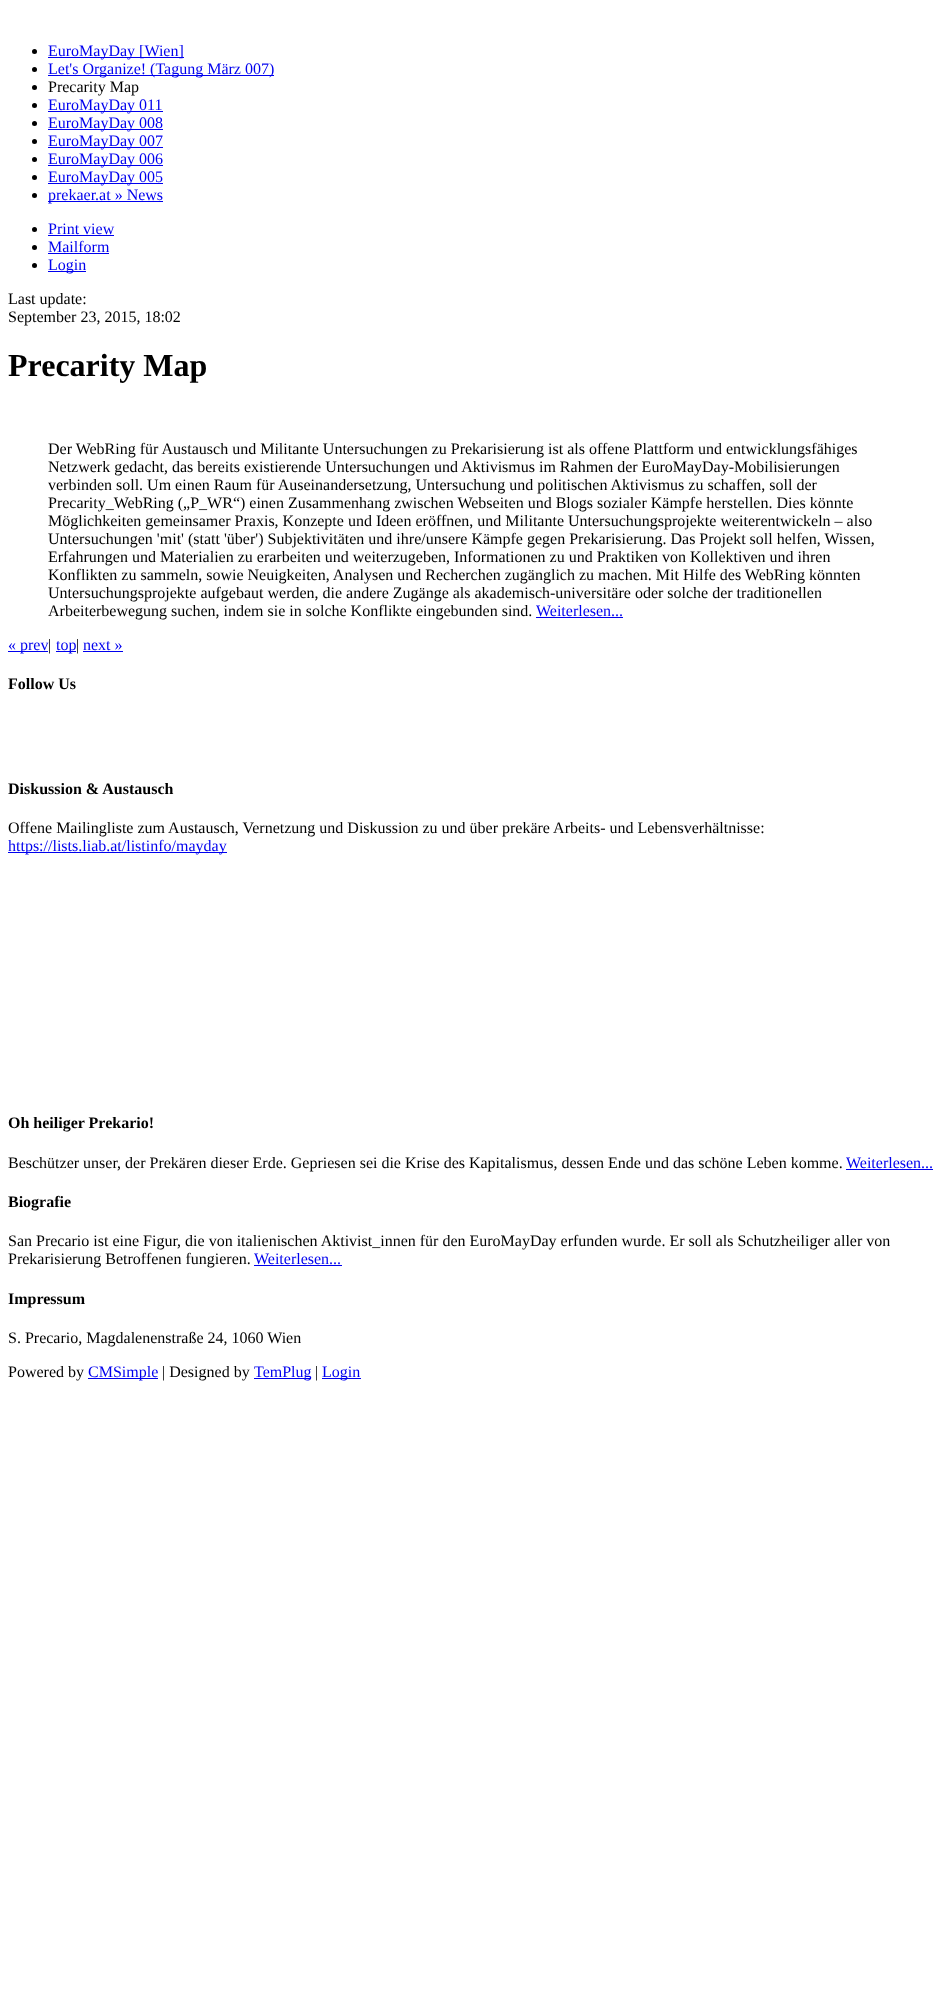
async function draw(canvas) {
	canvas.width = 950;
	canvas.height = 1992;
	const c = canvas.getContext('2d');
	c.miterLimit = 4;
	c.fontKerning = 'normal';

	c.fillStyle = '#fff';
	c.fillRect(0, 0, 950, 1992);
	c.fillStyle = '#000';
	c.beginPath();
	c.arc(34.5, 51.5, 2.5, 0, 2 * Math.PI);
	c.fill();
	c.fillStyle = '#00e';
	c.fillRect(48, 57, 136, 1);
	c.font = '16px Liberation Serif';
	c.fillText('EuroMayDay [Wien]', 48, 56);
	c.fillStyle = '#000';
	c.beginPath();
	c.arc(34.5, 69.5, 2.5, 0, 2 * Math.PI);
	c.fill();
	c.fillStyle = '#00e';
	c.fillRect(48, 75, 226, 1);
	c.fillText('Let\'s Organize! (Tagung März 007)', 48, 74);
	c.fillStyle = '#000';
	c.beginPath();
	c.arc(34.5, 87.5, 2.5, 0, 2 * Math.PI);
	c.fill();
	c.fillText('Precarity Map', 48, 92);
	c.beginPath();
	c.arc(34.5, 105.5, 2.5, 0, 2 * Math.PI);
	c.fill();
	c.fillStyle = '#00e';
	c.fillRect(48, 111, 115, 1);
	c.fillText('EuroMayDay 011', 48, 110);
	c.fillStyle = '#000';
	c.beginPath();
	c.arc(34.5, 123.5, 2.5, 0, 2 * Math.PI);
	c.fill();
	c.fillStyle = '#00e';
	c.fillRect(48, 129, 115, 1);
	c.fillText('EuroMayDay 008', 48, 128);
	c.fillStyle = '#000';
	c.beginPath();
	c.arc(34.5, 141.5, 2.5, 0, 2 * Math.PI);
	c.fill();
	c.fillStyle = '#00e';
	c.fillRect(48, 147, 115, 1);
	c.fillText('EuroMayDay 007', 48, 146);
	c.fillStyle = '#000';
	c.beginPath();
	c.arc(34.5, 159.5, 2.5, 0, 2 * Math.PI);
	c.fill();
	c.fillStyle = '#00e';
	c.fillRect(48, 165, 115, 1);
	c.fillText('EuroMayDay 006', 48, 164);
	c.fillStyle = '#000';
	c.beginPath();
	c.arc(34.5, 177.5, 2.5, 0, 2 * Math.PI);
	c.fill();
	c.fillStyle = '#00e';
	c.fillRect(48, 183, 115, 1);
	c.fillText('EuroMayDay 005', 48, 182);
	c.fillStyle = '#000';
	c.beginPath();
	c.arc(34.5, 195.5, 2.5, 0, 2 * Math.PI);
	c.fill();
	c.fillStyle = '#00e';
	c.fillRect(48, 201, 115, 1);
	c.fillText('prekaer.at » News', 48, 200);
	c.fillStyle = '#000';
	c.beginPath();
	c.arc(34.5, 229.5, 2.5, 0, 2 * Math.PI);
	c.fill();
	c.fillStyle = '#00e';
	c.fillText('Print view', 48, 234);
	c.fillRect(48, 235, 66, 1);
	c.fillStyle = '#000';
	c.beginPath();
	c.arc(34.5, 247.5, 2.5, 0, 2 * Math.PI);
	c.fill();
	c.fillStyle = '#00e';
	c.fillText('Mailform', 48, 252);
	c.fillRect(48, 253, 61, 1);
	c.fillStyle = '#000';
	c.beginPath();
	c.arc(34.5, 265.5, 2.5, 0, 2 * Math.PI);
	c.fill();
	c.fillStyle = '#00e';
	c.fillRect(48, 271, 38, 1);
	c.fillText('Login', 48, 270);
	c.fillStyle = '#000';
	c.fillText('Last update:', 8, 304);
	c.fillText('September 23, 2015, 18:02', 8, 322);
	c.font = 'bold 32px Liberation Serif';
	c.fillText('Precarity Map', 8, 376);
	c.font = '16px Liberation Serif';
	for (const [text, x, y] of [
		['Der WebRing für Austausch und Militante Untersuchungen zu Prekarisierung ist als offene Plattform und entwicklungsfähiges', 48, 454],
		['Netzwerk gedacht, das bereits existierende Untersuchungen und Aktivismus im Rahmen der EuroMayDay-Mobilisierungen', 48, 472],
		['verbinden soll. Um einen Raum für Auseinandersetzung, Untersuchung und politischen Aktivismus zu schaffen, soll der', 48, 490],
		['Precarity_WebRing („P_WR“) einen Zusammenhang zwischen Webseiten und Blogs sozialer Kämpfe herstellen. Dies könnte', 48, 508],
		['Möglichkeiten gemeinsamer Praxis, Konzepte und Ideen eröffnen, und Militante Untersuchungsprojekte weiterentwickeln – also', 48, 526],
		['Untersuchungen \'mit\' (statt \'über\') Subjektivitäten und ihre/unsere Kämpfe gegen Prekarisierung. Das Projekt soll helfen, Wissen,', 48, 544],
		['Erfahrungen und Materialien zu erarbeiten und weiterzugeben, Informationen zu und Praktiken von Kollektiven und ihren', 48, 562],
		['Konflikten zu sammeln, sowie Neuigkeiten, Analysen und Recherchen zugänglich zu machen. Mit Hilfe des WebRing könnten', 48, 580],
		['Untersuchungsprojekte aufgebaut werden, die andere Zugänge als akademisch-universitäre oder solche der traditionellen', 48, 598],
		['Arbeiterbewegung suchen, indem sie in solche Konflikte eingebunden sind.', 48, 616],
	]) {
		c.fillText(text, x, y);
	}
	c.fillStyle = '#00e';
	c.fillText('Weiterlesen...', 536, 616);
	c.fillRect(536, 617, 87, 1);
	c.fillRect(8, 651, 40, 1);
	c.fillText('« prev', 8, 650);
	c.fillStyle = '#000';
	c.fillText('|', 48, 650);
	c.fillStyle = '#00e';
	c.fillRect(56, 651, 20, 1);
	c.fillText('top', 56, 650);
	c.fillStyle = '#000';
	c.fillText('|', 76, 650);
	c.fillStyle = '#00e';
	c.fillText('next »', 83, 650);
	c.fillRect(83, 651, 40, 1);
	c.font = 'bold 16px Liberation Serif';
	c.fillStyle = '#000';
	c.fillText('Follow Us', 8, 689);
	c.fillText('Diskussion & Austausch', 8, 794);
	c.font = '16px Liberation Serif';
	c.fillText('Offene Mailingliste zum Austausch, Vernetzung und Diskussion zu und über prekäre Arbeits- und Lebensverhältnisse:', 8, 833);
	c.fillStyle = '#00e';
	c.fillRect(8, 852, 219, 1);
	c.fillText('https://lists.liab.at/listinfo/mayday', 8, 851);
	c.font = 'bold 16px Liberation Serif';
	c.fillStyle = '#000';
	c.fillText('Oh heiliger Prekario!', 8, 1128);
	c.font = '16px Liberation Serif';
	c.fillText('Beschützer unser, der Prekären dieser Erde. Gepriesen sei die Krise des Kapitalismus, dessen Ende und das schöne Leben komme.', 8, 1168);
	c.fillStyle = '#00e';
	c.fillText('Weiterlesen...', 846, 1168);
	c.fillRect(846, 1169, 87, 1);
	c.font = 'bold 16px Liberation Serif';
	c.fillStyle = '#000';
	c.fillText('Biografie', 8, 1207);
	c.font = '16px Liberation Serif';
	c.fillText('San Precario ist eine Figur, die von italienischen Aktivist_innen für den EuroMayDay erfunden wurde. Er soll als Schutzheiliger aller von', 8, 1246);
	c.fillText('Prekarisierung Betroffenen fungieren.', 8, 1264);
	c.fillStyle = '#00e';
	c.fillText('Weiterlesen...', 254, 1264);
	c.fillRect(254, 1265, 88, 1);
	c.font = 'bold 16px Liberation Serif';
	c.fillStyle = '#000';
	c.fillText('Impressum', 8, 1304);
	c.font = '16px Liberation Serif';
	c.fillText('S. Precario, Magdalenenstraße 24, 1060 Wien', 8, 1343);
	c.fillText('Powered by', 8, 1377);
	c.fillStyle = '#00e';
	c.fillRect(88, 1378, 70, 1);
	c.fillText('CMSimple', 88, 1377);
	c.fillStyle = '#000';
	c.fillText('| Designed by', 162, 1377);
	c.fillStyle = '#00e';
	c.fillRect(254, 1378, 57, 1);
	c.fillText('TemPlug', 254, 1377);
	c.fillStyle = '#000';
	c.fillText('|', 315, 1377);
	c.fillStyle = '#00e';
	c.fillRect(322, 1378, 39, 1);
	c.fillText('Login', 322, 1377);
}

draw(document.querySelector('canvas'));
